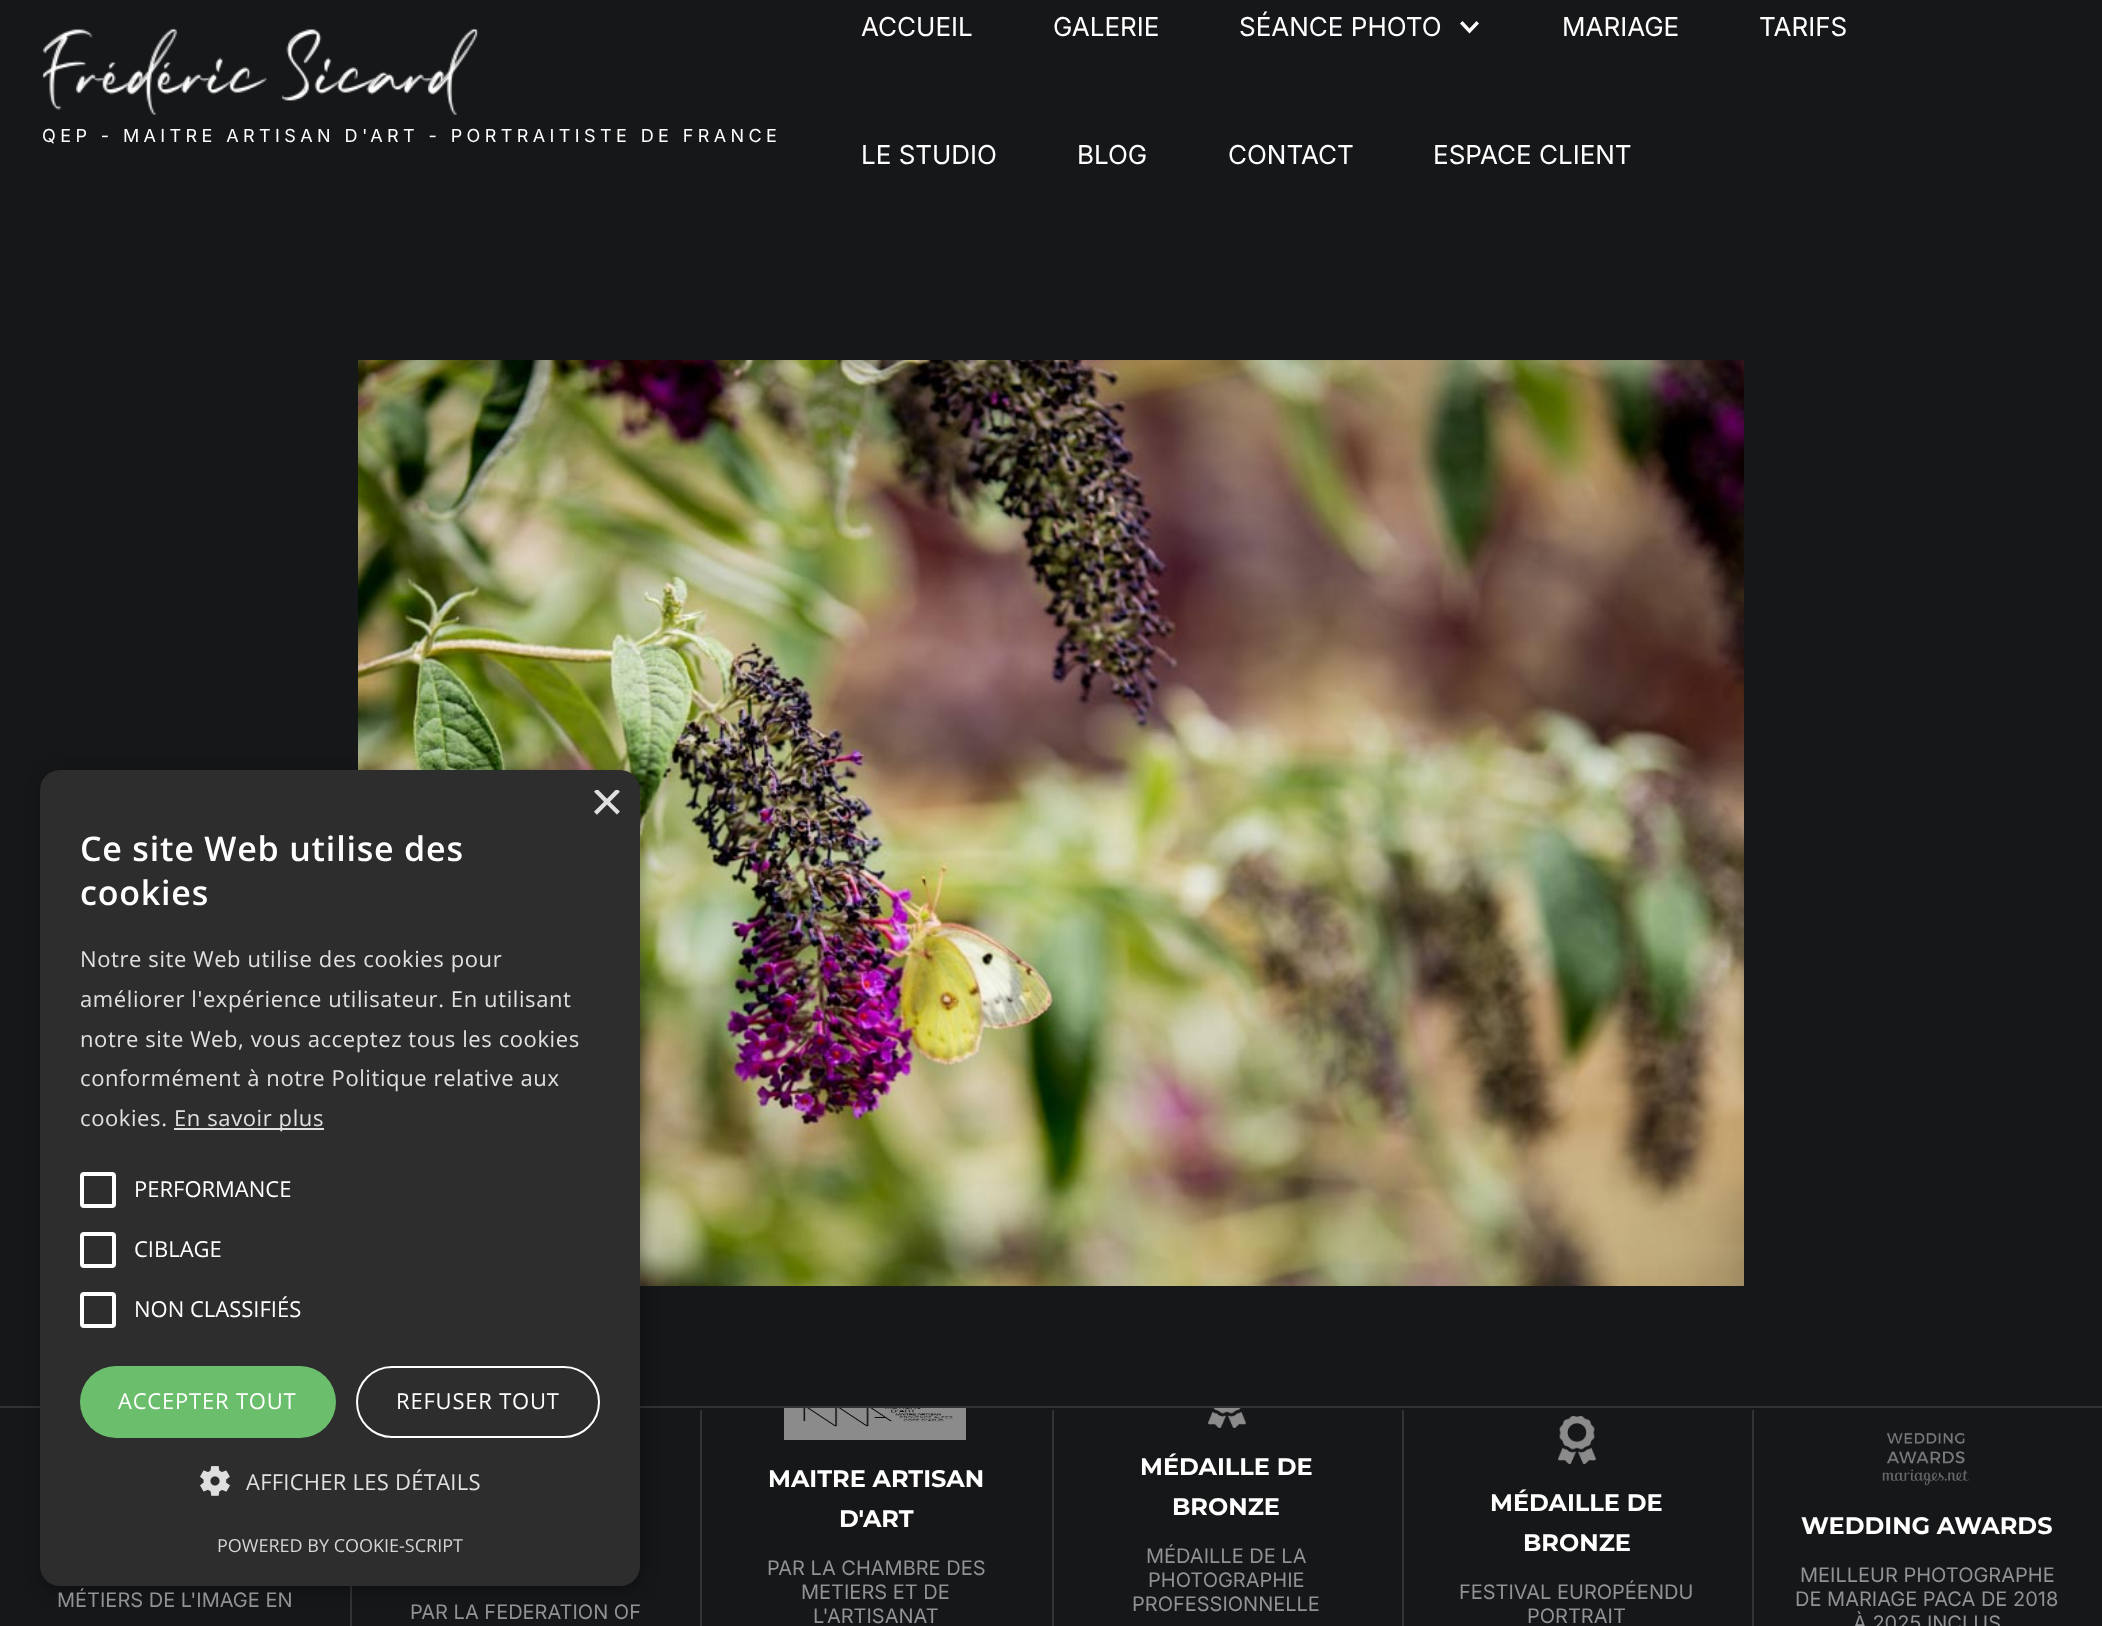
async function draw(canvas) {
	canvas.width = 2102;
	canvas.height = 1626;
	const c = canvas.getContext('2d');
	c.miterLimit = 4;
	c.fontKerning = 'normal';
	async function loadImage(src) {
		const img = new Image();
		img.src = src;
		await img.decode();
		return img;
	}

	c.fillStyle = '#161719';
	c.fillRect(0, 0, 2102, 1626);
	c.drawImage(await loadImage('img1.png'), 42, 28, 436, 88);
	c.letterSpacing = '4.4px';
	c.font = '18px Inter';
	c.fillStyle = '#fff';
	c.fillText('QEP - MAITRE ARTISAN D\'ART - PORTRAITISTE DE FRANCE', 42, 142);
	c.letterSpacing = '0px';
	c.font = '26px Inter';
	for (const [text, x, y] of [
		['ACCUEIL', 861, 36],
		['GALERIE', 1053, 36],
		['SÉANCE PHOTO', 1239, 36],
	]) {
		c.fillText(text, x, y);
	}
	c.beginPath();
	c.moveTo(1476.5, 21);
	c.lineTo(1469.5, 28.5);
	c.lineTo(1462.5, 21);
	c.lineTo(1460, 23.5);
	c.lineTo(1469.5, 33.5);
	c.lineTo(1479, 23.5);
	c.closePath();
	c.fill();
	for (const [text, x, y] of [
		['MARIAGE', 1562, 36],
		['TARIFS', 1759, 36],
		['LE STUDIO', 861, 164],
		['BLOG', 1077, 164],
		['CONTACT', 1228, 164],
		['ESPACE CLIENT', 1433, 164],
	]) {
		c.fillText(text, x, y);
	}
	c.drawImage(await loadImage('img3.png'), 358, 360, 1386, 926);
	c.fillStyle = '#323335';
	c.fillRect(0, 1406, 2102, 2);
	c.beginPath();
	c.moveTo(2, 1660);
	c.lineTo(2, 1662);
	c.lineTo(352, 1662);
	c.lineTo(352, 1410);
	c.lineTo(350, 1410);
	c.lineTo(350, 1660);
	c.closePath();
	c.fill();
	c.fillStyle = '#00000059';
	c.filter = 'blur(8px)';
	c.beginPath();
	c.roundRect(42, 774, 600, 816, 20);
	c.fill();
	c.filter = 'none';
	c.fillStyle = '#2d2d2d';
	c.beginPath();
	c.roundRect(40, 770, 600, 816, 20);
	c.fill();
	c.save();
	c.beginPath();
	c.rect(590, 790, 30, 30);
	c.clip();
	c.font = '58px Liberation Sans';
	c.fillStyle = '#e0e0e0';
	c.fillText('×', 590, 821);
	c.restore();
	c.letterSpacing = '0.8px';
	c.font = '600 34px Open Sans';
	c.fillStyle = '#fff';
	c.fillText('Ce site Web utilise des', 80, 861);
	c.fillText('cookies', 80, 905);
	c.letterSpacing = '0.6px';
	c.font = '22px Open Sans';
	c.fillStyle = '#e0e0e0';
	for (const [text, x, y] of [
		['Notre site Web utilise des cookies pour', 80, 967],
		['améliorer l\'expérience utilisateur. En utilisant', 80, 1007],
		['notre site Web, vous acceptez tous les cookies', 80, 1047],
		['conformément à notre Politique relative aux', 80, 1086],
		['cookies.', 80, 1126],
	]) {
		c.fillText(text, x, y);
	}
	c.fillRect(174, 1128, 150, 2);
	c.fillText('En savoir plus', 174, 1126);
	c.beginPath();
	c.roundRect(82, 1174, 32, 32, 2);
	c.strokeStyle = '#fff';
	c.lineWidth = 4;
	c.stroke();
	c.letterSpacing = '0px';
	c.fillStyle = '#fff';
	c.fillText('PERFORMANCE', 134, 1197);
	c.beginPath();
	c.roundRect(82, 1234, 32, 32, 2);
	c.stroke();
	c.fillText('CIBLAGE', 134, 1257);
	c.beginPath();
	c.roundRect(82, 1294, 32, 32, 2);
	c.stroke();
	c.fillText('NON CLASSIFIÉS', 134, 1317);
	c.fillStyle = '#6bbe6b';
	c.beginPath();
	c.roundRect(80, 1366, 256, 72, 36);
	c.fill();
	c.letterSpacing = '0.8px';
	c.fillStyle = '#fff';
	c.fillText('ACCEPTER TOUT', 118, 1409);
	c.beginPath();
	c.roundRect(357, 1367, 242, 70, 35);
	c.lineWidth = 2;
	c.stroke();
	c.fillText('REFUSER TOUT', 396, 1409);
	c.drawImage(await loadImage('img2.png'), 200, 1466, 30, 30);
	c.letterSpacing = '0.25px';
	c.fillStyle = '#e0e0e0';
	c.fillText('AFFICHER LES DÉTAILS', 246, 1490);
	c.letterSpacing = '0px';
	c.font = '18px Open Sans';
	c.fillStyle = '#d5d5d5';
	c.fillText('POWERED BY COOKIE-SCRIPT', 217, 1552);
	c.font = '20px Inter';
	c.fillStyle = '#919293';
	c.fillText('MÉTIERS DE L\'IMAGE EN', 57, 1607);
	c.fillStyle = '#323335';
	c.beginPath();
	c.moveTo(702, 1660);
	c.lineTo(702, 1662);
	c.lineTo(1054, 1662);
	c.lineTo(1054, 1410);
	c.lineTo(1052, 1410);
	c.lineTo(1052, 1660);
	c.closePath();
	c.fill();
	c.drawImage(await loadImage('img4.png'), 784, 1408, 182, 32);
	c.font = 'bold 24px Montserrat';
	c.fillStyle = '#fff';
	c.fillText('MAITRE ARTISAN', 768, 1487);
	c.fillText('D\'ART', 839, 1527);
	c.font = '20px Inter';
	c.fillStyle = '#919293';
	for (const [text, x, y] of [
		['PAR LA CHAMBRE DES', 767, 1575],
		['METIERS ET DE', 801, 1599],
		['L\'ARTISANAT', 813, 1623],
	]) {
		c.fillText(text, x, y);
	}
	c.fillStyle = '#323335';
	c.beginPath();
	c.moveTo(1054, 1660);
	c.lineTo(1054, 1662);
	c.lineTo(1404, 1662);
	c.lineTo(1404, 1410);
	c.lineTo(1402, 1410);
	c.lineTo(1402, 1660);
	c.closePath();
	c.fill();
	c.drawImage(await loadImage('img5.png'), 1208, 1408, 38, 20);
	c.font = 'bold 24px Montserrat';
	c.fillStyle = '#fff';
	c.fillText('MÉDAILLE DE', 1140, 1475);
	c.fillText('BRONZE', 1172, 1515);
	c.font = '20px Inter';
	c.fillStyle = '#919293';
	for (const [text, x, y] of [
		['MÉDAILLE DE LA', 1146, 1563],
		['PHOTOGRAPHIE', 1148, 1587],
		['PROFESSIONNELLE', 1132, 1611],
	]) {
		c.fillText(text, x, y);
	}
	c.fillStyle = '#323335';
	c.beginPath();
	c.moveTo(1404, 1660);
	c.lineTo(1404, 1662);
	c.lineTo(1754, 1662);
	c.lineTo(1754, 1410);
	c.lineTo(1752, 1410);
	c.lineTo(1752, 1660);
	c.closePath();
	c.fill();
	c.drawImage(await loadImage('img6.png'), 1558, 1416, 38, 48);
	c.font = 'bold 24px Montserrat';
	c.fillStyle = '#fff';
	c.fillText('MÉDAILLE DE', 1490, 1511);
	c.fillText('BRONZE', 1523, 1551);
	c.font = '20px Inter';
	c.fillStyle = '#919293';
	c.fillText('FESTIVAL EUROPÉENDU', 1459, 1599);
	c.fillText('PORTRAIT', 1527, 1623);
	c.drawImage(await loadImage('img7.png'), 1882, 1432, 87, 54);
	c.font = 'bold 24px Montserrat';
	c.fillStyle = '#fff';
	c.fillText('WEDDING AWARDS', 1801, 1534);
	c.font = '20px Inter';
	c.fillStyle = '#919293';
	for (const [text, x, y] of [
		['MEILLEUR PHOTOGRAPHE', 1800, 1582],
		['DE MARIAGE PACA DE 2018', 1795, 1606],
		['À 2025 INCLUS', 1853, 1630],
	]) {
		c.fillText(text, x, y);
	}
	c.fillStyle = '#323335';
	c.beginPath();
	c.moveTo(352, 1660);
	c.lineTo(352, 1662);
	c.lineTo(702, 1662);
	c.lineTo(702, 1410);
	c.lineTo(700, 1410);
	c.lineTo(700, 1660);
	c.closePath();
	c.fill();
	c.fillStyle = '#919293';
	c.fillText('PAR LA FEDERATION OF', 410, 1619);
}

draw(document.querySelector('canvas'));
